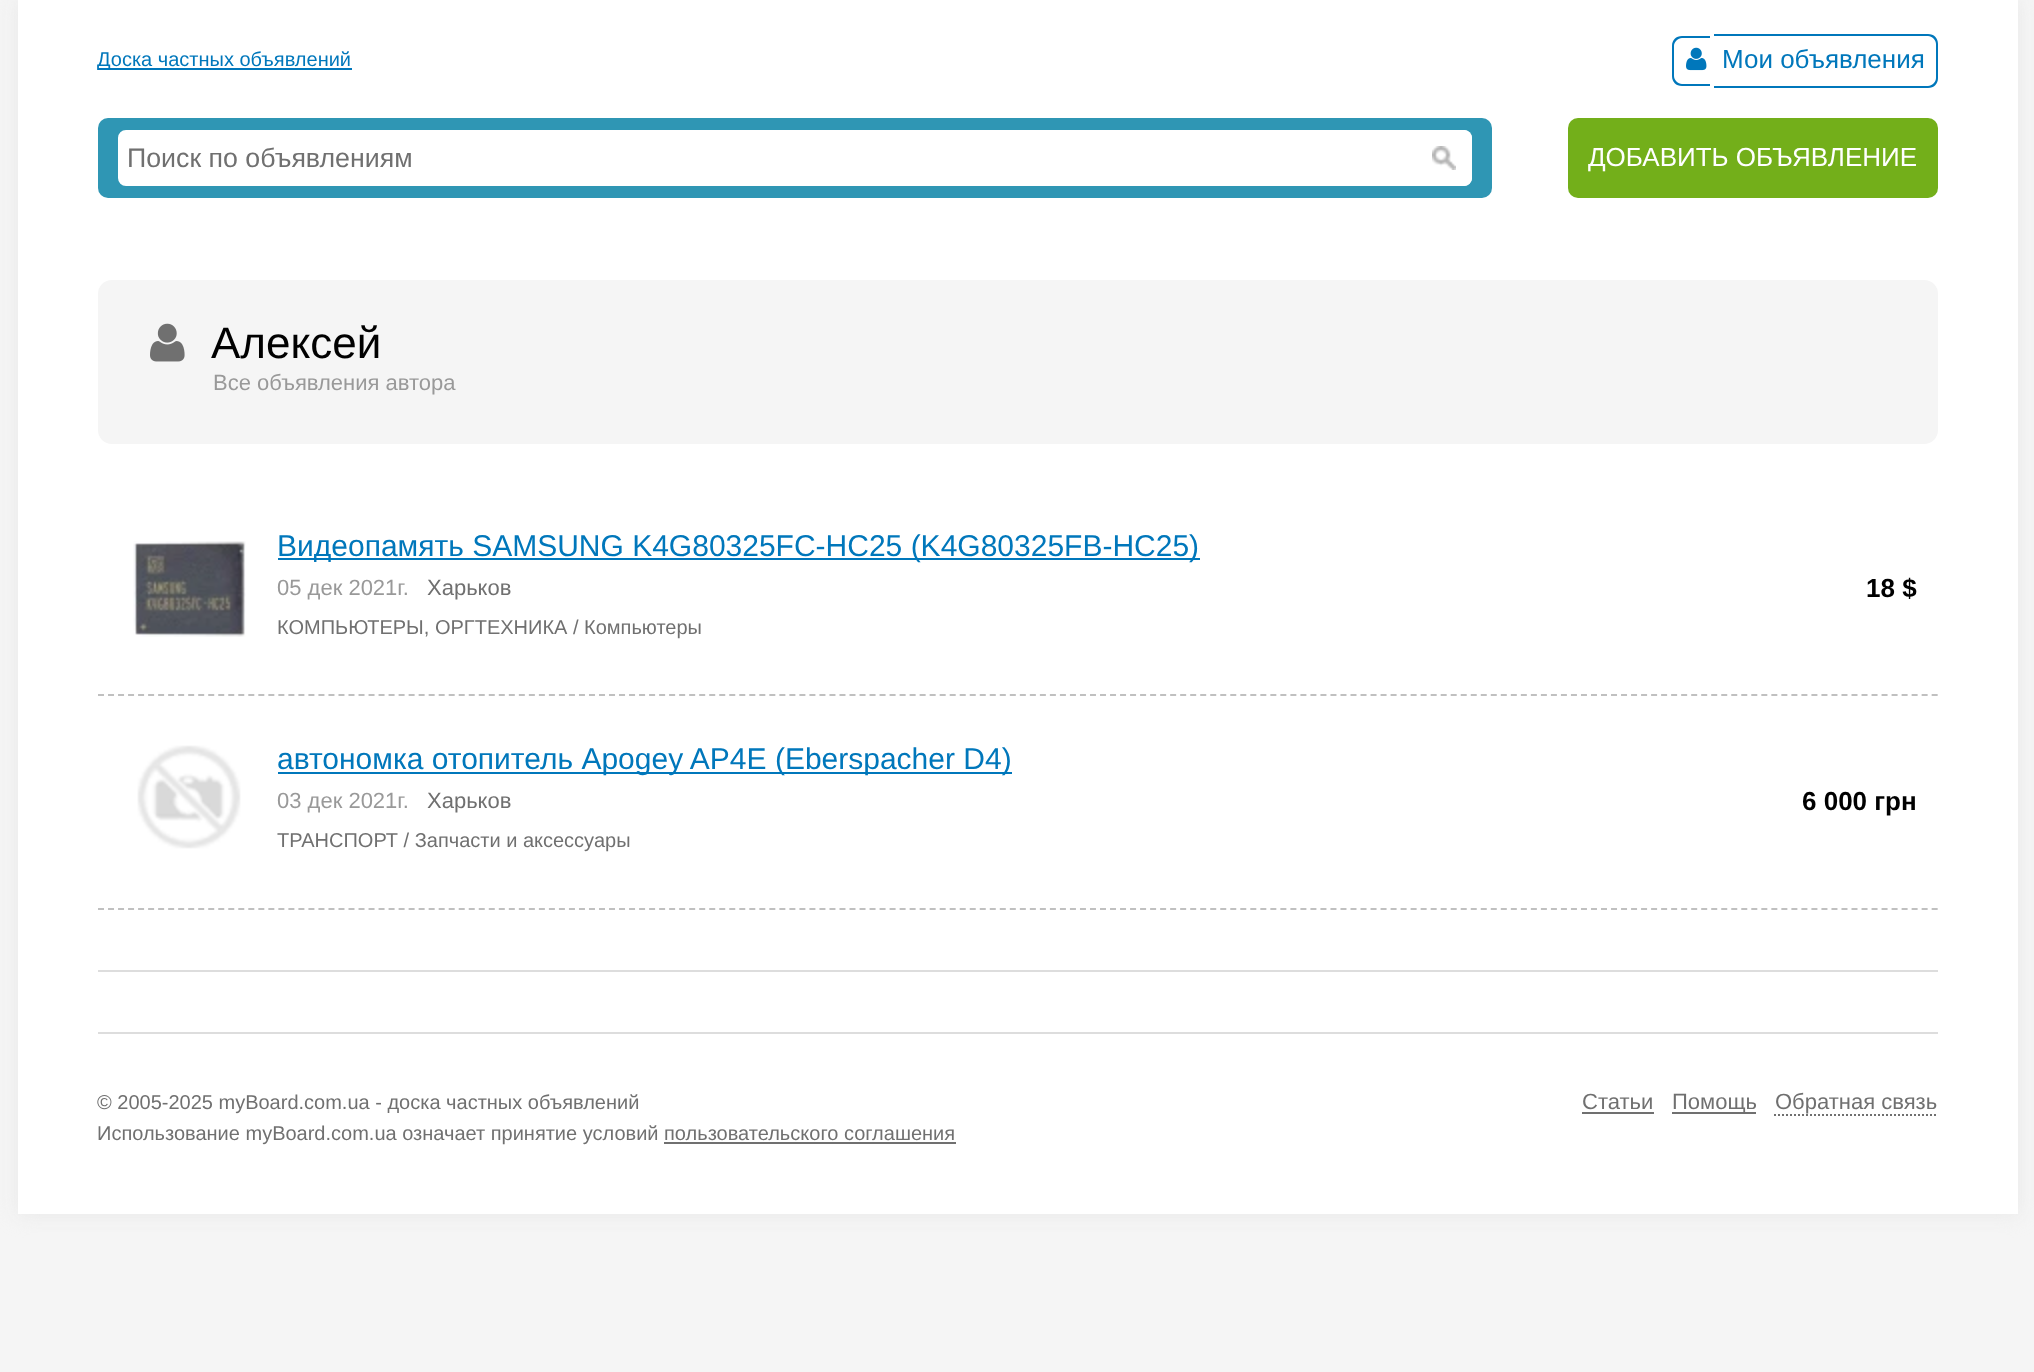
async function draw(canvas) {
	canvas.width = 2034;
	canvas.height = 1372;
	const c = canvas.getContext('2d');
	c.miterLimit = 4;
	c.fontKerning = 'normal';
	async function loadImage(src) {
		const img = new Image();
		img.src = src;
		await img.decode();
		return img;
	}

	c.fillStyle = '#f5f5f5';
	c.fillRect(0, 0, 2034, 1372);
	c.fillStyle = '#e8e8e8';
	c.filter = 'blur(10px)';
	c.beginPath();
	c.rect(18, 0, 2000, 1214);
	c.fill();
	c.filter = 'none';
	c.fillStyle = '#fff';
	c.fillRect(18, 0, 2000, 1214);
	c.fillStyle = '#07b';
	c.fillRect(98, 68, 254, 2);
	c.font = '20px Liberation Sans';
	c.fillText('Доска частных объявлений', 97, 66);
	c.beginPath();
	c.moveTo(1682, 36);
	c.lineTo(1710, 36);
	c.lineTo(1710, 86);
	c.lineTo(1682, 86);
	c.bezierCurveTo(1676, 86, 1672, 82, 1672, 76);
	c.lineTo(1672, 46);
	c.bezierCurveTo(1672, 40, 1676, 36, 1682, 36);
	c.closePath();
	c.moveTo(1682, 38);
	c.lineTo(1710, 38);
	c.lineTo(1710, 84);
	c.lineTo(1682, 84);
	c.bezierCurveTo(1678, 84, 1674, 80, 1674, 76);
	c.lineTo(1674, 46);
	c.bezierCurveTo(1674, 42, 1678, 38, 1682, 38);
	c.closePath();
	c.fill('evenodd');
	c.beginPath();
	c.moveTo(1714, 34);
	c.lineTo(1928, 34);
	c.bezierCurveTo(1934, 34, 1938, 38, 1938, 44);
	c.lineTo(1938, 78);
	c.bezierCurveTo(1938, 84, 1934, 88, 1928, 88);
	c.lineTo(1714, 88);
	c.closePath();
	c.moveTo(1714, 36);
	c.lineTo(1928, 36);
	c.bezierCurveTo(1932, 36, 1936, 40, 1936, 44);
	c.lineTo(1936, 78);
	c.bezierCurveTo(1936, 82, 1932, 86, 1928, 86);
	c.lineTo(1714, 86);
	c.closePath();
	c.fill('evenodd');
	c.drawImage(await loadImage('img1.png'), 1686, 47, 21, 24);
	c.font = '26px Liberation Sans';
	c.fillText('Мои объявления', 1722, 68);
	c.fillStyle = '#2f96b4';
	c.beginPath();
	c.roundRect(98, 118, 1394, 80, 10);
	c.fill();
	c.fillStyle = '#fff';
	c.beginPath();
	c.roundRect(119, 131, 1298, 54, [7, 0, 0, 7]);
	c.fill();
	c.strokeStyle = '#fff';
	c.lineWidth = 2;
	c.stroke();
	c.font = '26.75px Liberation Sans';
	c.fillStyle = '#707070';
	c.fillText('Поиск по объявлениям', 127, 167);
	c.fillStyle = '#fff';
	c.beginPath();
	c.roundRect(1418, 130, 54, 56, [0, 8, 8, 0]);
	c.fill();
	c.drawImage(await loadImage('img2.png'), 1432, 146, 24, 24);
	c.beginPath();
	c.moveTo(1418, 130);
	c.lineTo(1464, 130);
	c.bezierCurveTo(1468, 130, 1472, 134, 1472, 138);
	c.lineTo(1472, 178);
	c.bezierCurveTo(1472, 182, 1468, 186, 1464, 186);
	c.lineTo(1418, 186);
	c.closePath();
	c.moveTo(1418, 132);
	c.lineTo(1464, 132);
	c.bezierCurveTo(1467, 132, 1470, 135, 1470, 138);
	c.lineTo(1470, 178);
	c.bezierCurveTo(1470, 181, 1467, 184, 1464, 184);
	c.lineTo(1418, 184);
	c.closePath();
	c.fill('evenodd');
	c.fillStyle = '#73af1a';
	c.beginPath();
	c.roundRect(1568, 118, 370, 80, 10);
	c.fill();
	c.font = '26px Liberation Sans';
	c.fillStyle = '#fff';
	c.fillText('ДОБАВИТЬ ОБЪЯВЛЕНИЕ', 1588, 166);
	c.fillStyle = '#f5f5f5';
	c.beginPath();
	c.roundRect(98, 280, 1840, 164, 14);
	c.fill();
	c.drawImage(await loadImage('img3.png'), 150, 323, 35, 39);
	c.font = '44px Liberation Sans';
	c.fillStyle = '#000';
	c.fillText('Алексей', 211, 358);
	c.font = '22px Liberation Sans';
	c.fillStyle = '#999';
	c.fillText('Все объявления автора', 213, 390);
	c.drawImage(await loadImage('img4.png'), 133, 541, 113, 96);
	c.fillStyle = '#07b';
	c.fillRect(278, 558, 922, 2);
	c.font = '30px Liberation Sans';
	c.fillText('Видеопамять SAMSUNG K4G80325FC-HC25 (K4G80325FB-HC25)', 277, 556);
	c.font = '22px Liberation Sans';
	c.fillStyle = '#999';
	c.fillText('05 дек 2021г.', 277, 595);
	c.fillStyle = '#707070';
	c.fillText('Харьков', 427, 595);
	c.font = '20px Liberation Sans';
	c.fillText('КОМПЬЮТЕРЫ, ОРГТЕХНИКА / Компьютеры', 277, 634);
	c.font = 'bold 26px Liberation Sans';
	c.fillStyle = '#000';
	c.fillText('18 $', 1866, 597);
	c.beginPath();
	c.moveTo(98, 695);
	c.lineTo(1938, 695);
	c.strokeStyle = '#c0c0c0';
	c.setLineDash([6, 4.02]);
	c.stroke();
	c.drawImage(await loadImage('img5.png'), 137, 745, 104, 104);
	c.fillStyle = '#07b';
	c.fillRect(278, 772, 734, 2);
	c.font = '30px Liberation Sans';
	c.fillText('автономка отопитель Apogey AP4E (Eberspacher D4)', 277, 769);
	c.font = '22px Liberation Sans';
	c.fillStyle = '#999';
	c.fillText('03 дек 2021г.', 277, 808);
	c.fillStyle = '#707070';
	c.fillText('Харьков', 427, 808);
	c.font = '20px Liberation Sans';
	c.fillText('ТРАНСПОРТ / Запчасти и аксессуары', 277, 847);
	c.font = 'bold 26px Liberation Sans';
	c.fillStyle = '#000';
	c.fillText('6 000 грн', 1802, 810);
	c.beginPath();
	c.moveTo(98, 909);
	c.lineTo(1938, 909);
	c.stroke();
	c.fillStyle = '#ddd';
	c.fillRect(98, 970, 1840, 2);
	c.fillRect(98, 1032, 1840, 2);
	c.font = '20px Liberation Sans';
	c.fillStyle = '#707070';
	c.fillText('© 2005-2025 myBoard.com.ua - доска частных объявлений', 97, 1109);
	c.fillText('Использование myBoard.com.ua означает принятие условий пользовательского соглашения', 97, 1140);
	c.fillRect(664, 1142, 292, 2);
	c.font = '22px Liberation Sans';
	c.fillText('Статьи', 1582, 1109);
	c.fillRect(1582, 1112, 72, 2);
	c.fillRect(1672, 1112, 84, 2);
	c.fillText('Помощь', 1672, 1109);
	c.fillText('Обратная связь', 1775, 1109);
	c.beginPath();
	c.moveTo(1774, 1115);
	c.lineTo(1938, 1115);
	c.strokeStyle = '#707070';
	c.setLineDash([2, 2]);
	c.stroke();
}

draw(document.querySelector('canvas'));
